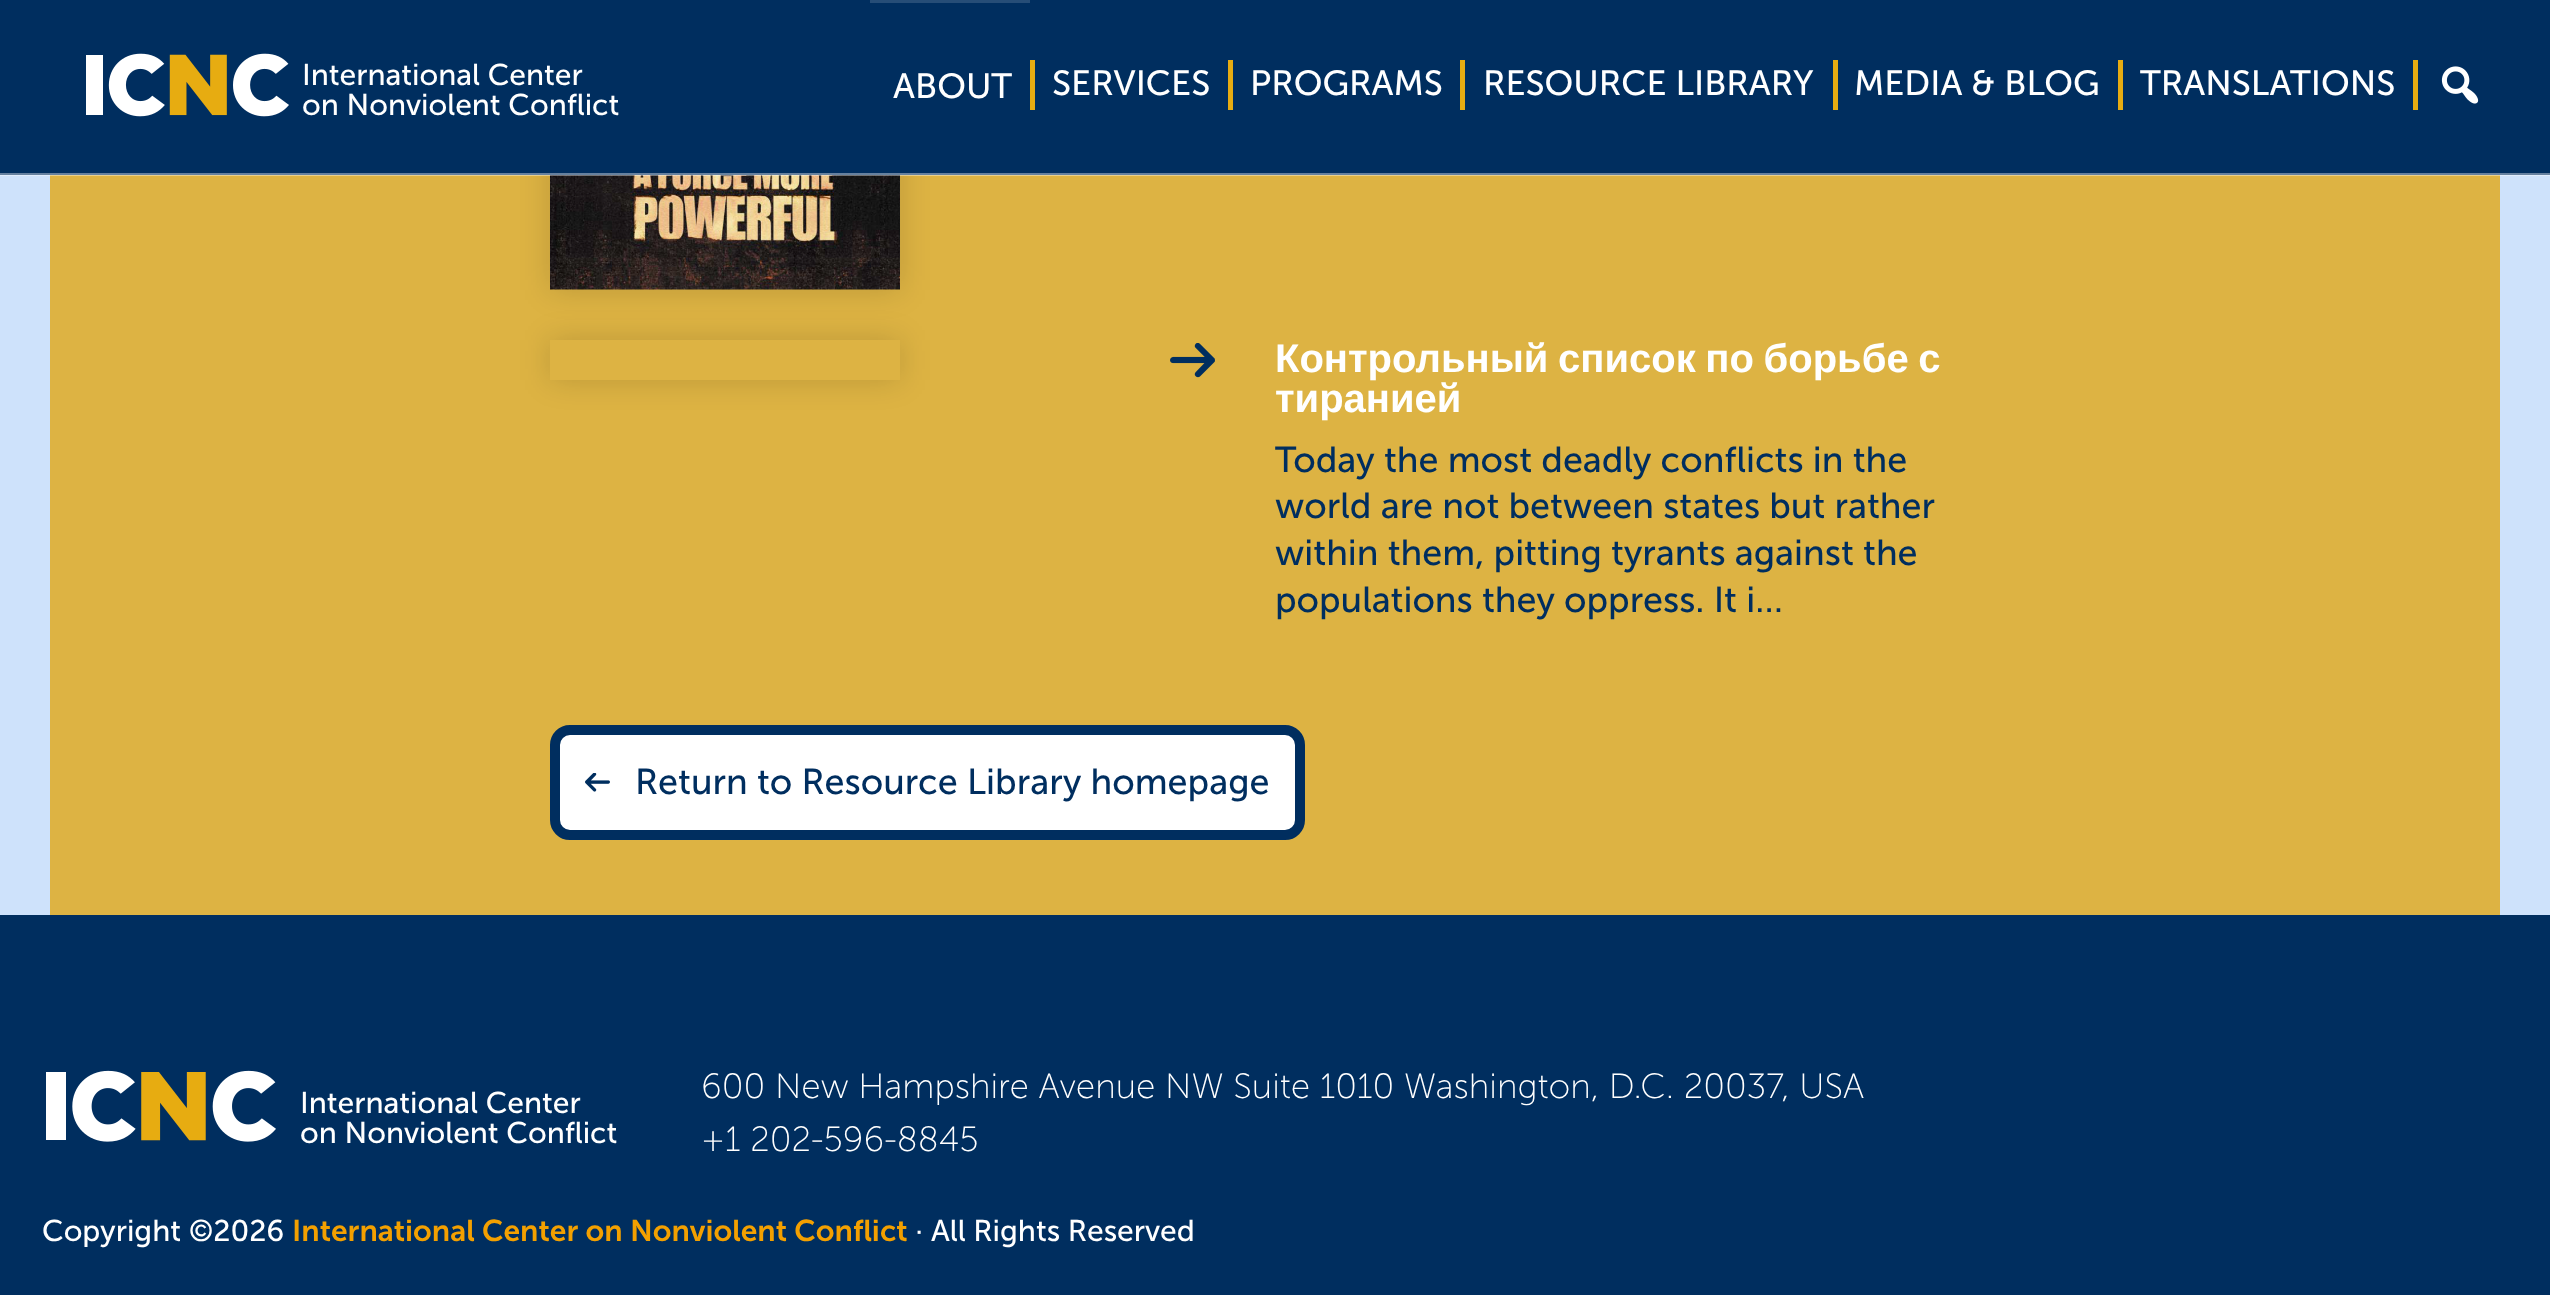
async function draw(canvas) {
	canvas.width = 2550;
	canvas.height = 1295;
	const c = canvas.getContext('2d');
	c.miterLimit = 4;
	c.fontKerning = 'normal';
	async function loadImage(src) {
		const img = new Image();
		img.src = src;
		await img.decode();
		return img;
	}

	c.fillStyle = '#cee2fb';
	c.fillRect(0, 0, 2550, 1295);
	c.fillStyle = '#ddb343';
	c.fillRect(50, 175, 2450, 740);
	c.fillStyle = '#00000026';
	c.filter = 'blur(15px)';
	c.beginPath();
	c.rect(550, -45, 350, 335);
	c.fill();
	c.filter = 'none';
	c.fillStyle = '#002e5f';
	c.fillRect(0, 0, 2550, 175);
	c.drawImage(await loadImage('img3.png'), 550, 175, 350, 115);
	c.fillStyle = '#ffffff66';
	c.fillRect(0, 173, 2550, 3);
	c.drawImage(await loadImage('img1.png'), 86, 53, 203, 64);
	c.font = '30px Museo Sans';
	c.fillStyle = '#fff';
	c.fillText('International Center', 302, 85);
	c.fillText('on Nonviolent Conflict', 302, 115);
	c.fillStyle = '#264d77';
	c.fillRect(870, 0, 160, 3);
	c.font = '35px Museo Sans';
	c.fillStyle = '#fff';
	c.fillText('ABOUT', 893, 98);
	c.fillStyle = '#e7ac11';
	c.fillRect(1030, 60, 5, 50);
	c.fillStyle = '#fff';
	c.fillText('SERVICES', 1052, 95);
	c.fillStyle = '#e7ac11';
	c.fillRect(1228, 60, 5, 50);
	c.fillStyle = '#fff';
	c.fillText('PROGRAMS', 1250, 95);
	c.fillStyle = '#e7ac11';
	c.fillRect(1460, 60, 5, 50);
	c.fillStyle = '#fff';
	c.fillText('RESOURCE LIBRARY', 1483, 95);
	c.fillStyle = '#e7ac11';
	c.fillRect(1833, 60, 5, 50);
	c.fillStyle = '#fff';
	c.fillText('MEDIA & BLOG', 1854, 95);
	c.fillStyle = '#e7ac11';
	c.fillRect(2118, 60, 5, 50);
	c.fillStyle = '#fff';
	c.fillText('TRANSLATIONS', 2140, 95);
	c.fillStyle = '#e7ac11';
	c.fillRect(2413, 60, 5, 50);
	c.drawImage(await loadImage('img2.png'), 2441, 66, 38, 38);
	c.drawImage(await loadImage('img4.png'), 1170, 343, 45, 35);
	c.save();
	c.beginPath();
	c.moveTo(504, 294);
	c.lineTo(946, 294);
	c.lineTo(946, 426);
	c.lineTo(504, 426);
	c.closePath();
	c.moveTo(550, 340);
	c.lineTo(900, 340);
	c.lineTo(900, 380);
	c.lineTo(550, 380);
	c.closePath();
	c.clip('evenodd');
	c.fillStyle = '#00000026';
	c.filter = 'blur(15px)';
	c.beginPath();
	c.rect(550, 340, 350, 40);
	c.fill();
	c.filter = 'none';
	c.restore();
	c.wordSpacing = '-1.5px';
	c.font = 'bold 40px Liberation Sans';
	c.fillStyle = '#fff';
	c.fillText('Контрольный список по борьбе с', 1275, 372);
	c.wordSpacing = '0px';
	c.fillText('тиранией', 1275, 412);
	c.font = '36px Museo Sans';
	c.fillStyle = '#002e5f';
	for (const [text, x, y] of [
		['Today the most deadly conflicts in the', 1275, 472],
		['world are not between states but rather', 1275, 518],
		['within them, pitting tyrants against the', 1275, 565],
		['populations they oppress. It i…', 1275, 612],
	]) {
		c.fillText(text, x, y);
	}
	c.fillStyle = '#fff';
	c.beginPath();
	c.roundRect(555, 730, 745, 105, 15);
	c.fill();
	c.strokeStyle = '#002e5f';
	c.lineWidth = 10;
	c.stroke();
	c.drawImage(await loadImage('img5.png'), 585, 773, 25, 19);
	c.font = '36px "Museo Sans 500"';
	c.fillStyle = '#002e5f';
	c.fillText('Return to Resource Library homepage', 635, 794);
	c.fillRect(0, 915, 2550, 380);
	c.drawImage(await loadImage('img6.png'), 46, 1070, 230, 72);
	c.font = '30px Museo Sans';
	c.fillStyle = '#fff';
	c.fillText('International Center', 300, 1113);
	c.fillText('on Nonviolent Conflict', 300, 1143);
	c.font = '300 35px "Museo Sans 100"';
	c.fillText('600 New Hampshire Avenue NW Suite 1010 Washington, D.C. 20037, USA', 701, 1098);
	c.fillText('+1 202-596-8845', 701, 1151);
	c.font = '30px Museo Sans';
	c.fillText('Copyright ©2026', 42, 1241);
	c.font = '600 30px "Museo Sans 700"';
	c.fillStyle = '#f3a000';
	c.fillText('International Center on Nonviolent Conflict', 292, 1241);
	c.font = '30px Museo Sans';
	c.fillStyle = '#fff';
	c.fillText('· All Rights Reserved', 915, 1241);
}

draw(document.querySelector('canvas'));
